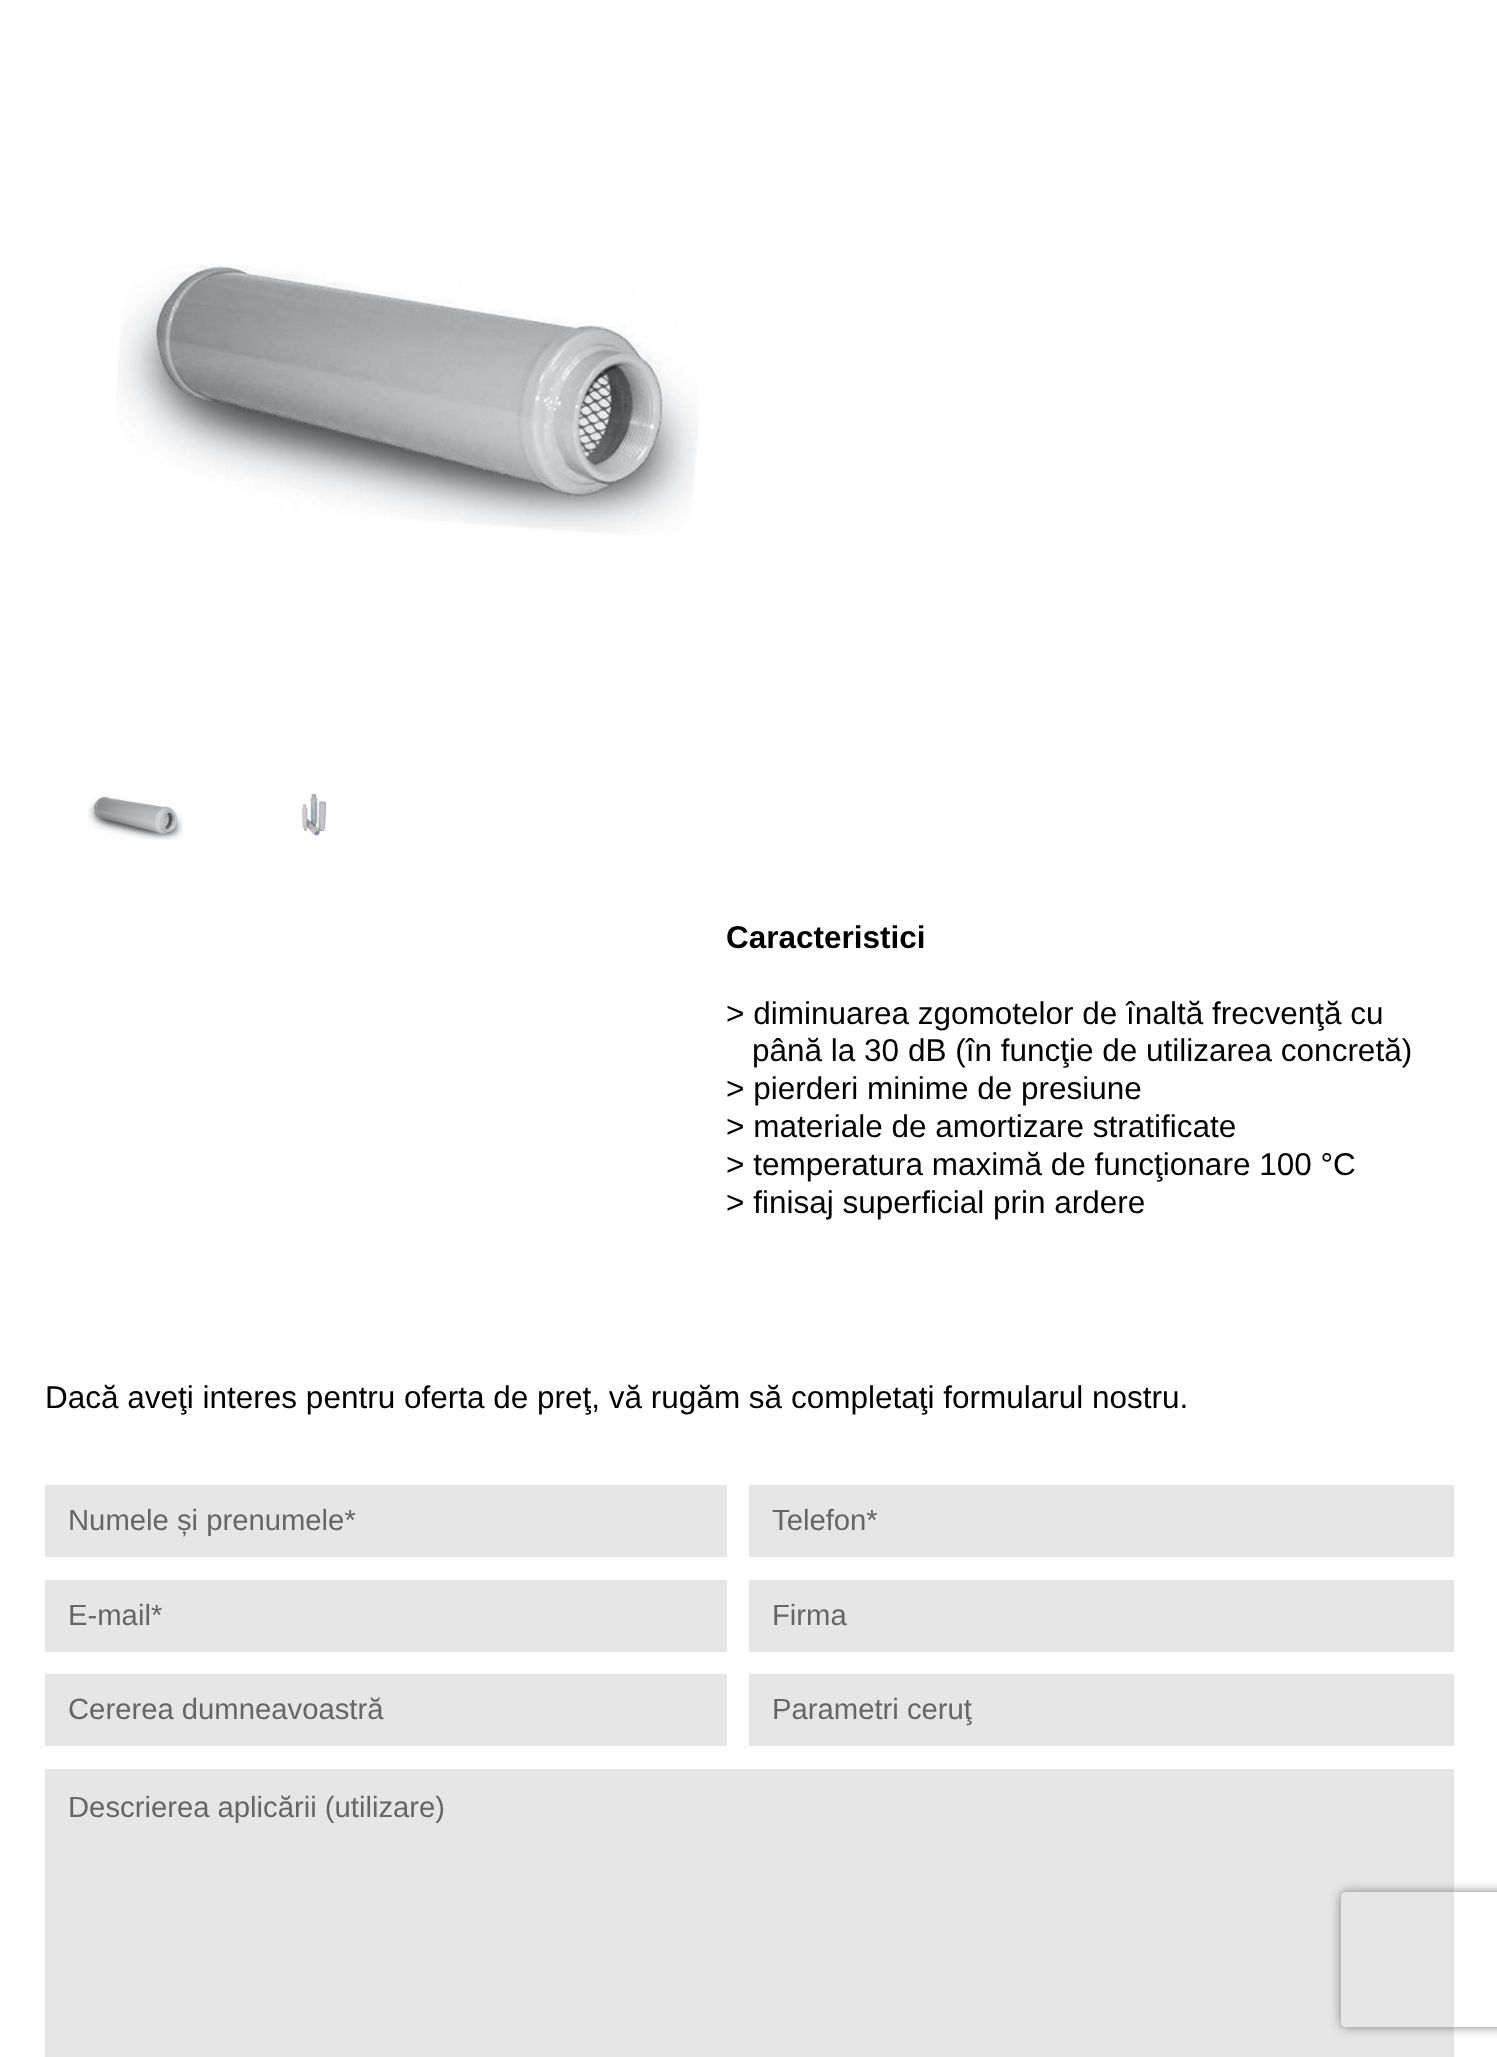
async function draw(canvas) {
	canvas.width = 1497;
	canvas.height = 2057;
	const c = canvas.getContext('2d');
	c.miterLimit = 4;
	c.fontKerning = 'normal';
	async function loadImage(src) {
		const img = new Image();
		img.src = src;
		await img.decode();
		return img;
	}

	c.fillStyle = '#fff';
	c.fillRect(0, 0, 1497, 2057);
	c.drawImage(await loadImage('img1.png'), 116, 263, 583, 272);
	c.drawImage(await loadImage('img2.png'), 88, 796, 95, 44);
	c.drawImage(await loadImage('img3.png'), 301, 793, 26, 43);
	c.font = 'bold 31.5px Liberation Sans';
	c.fillStyle = '#000';
	c.fillText('Caracteristici', 726, 948);
	c.font = '31.5px Liberation Sans';
	for (const [text, x, y] of [
		['> diminuarea zgomotelor de înaltă frecvenţă cu', 726, 1024],
		['până la 30 dB (în funcţie de utilizarea concretă)', 752, 1061],
		['> pierderi minime de presiune', 726, 1099],
		['> materiale de amortizare stratificate', 726, 1137],
		['> temperatura maximă de funcţionare 100 °C', 726, 1175],
		['> finisaj superficial prin ardere', 726, 1213],
		['Dacă aveţi interes pentru oferta de preţ, vă rugăm să completaţi formularul nostru.', 45, 1408],
	]) {
		c.fillText(text, x, y);
	}
	c.fillStyle = '#e6e6e6';
	c.fillRect(45, 1485, 682, 72);
	c.font = '29.25px Liberation Sans';
	c.fillStyle = '#666';
	c.fillText('Numele și prenumele*', 68, 1530);
	c.fillStyle = '#e6e6e6';
	c.fillRect(749, 1485, 705, 72);
	c.fillStyle = '#666';
	c.fillText('Telefon*', 772, 1530);
	c.fillStyle = '#e6e6e6';
	c.fillRect(45, 1580, 682, 72);
	c.fillStyle = '#666';
	c.fillText('E-mail*', 68, 1625);
	c.fillStyle = '#e6e6e6';
	c.fillRect(749, 1580, 705, 72);
	c.fillStyle = '#666';
	c.fillText('Firma', 772, 1625);
	c.fillStyle = '#e6e6e6';
	c.fillRect(45, 1674, 682, 72);
	c.fillStyle = '#666';
	c.fillText('Cererea dumneavoastră', 68, 1719);
	c.fillStyle = '#e6e6e6';
	c.fillRect(749, 1674, 705, 72);
	c.fillStyle = '#666';
	c.fillText('Parametri ceruţ', 772, 1719);
	c.fillStyle = '#e6e6e6';
	c.fillRect(45, 1769, 1409, 288);
	c.fillStyle = '#666';
	c.fillText('Descrierea aplicării (utilizare)', 68, 1817);
	c.save();
	c.beginPath();
	c.moveTo(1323, 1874);
	c.lineTo(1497, 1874);
	c.lineTo(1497, 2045);
	c.lineTo(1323, 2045);
	c.closePath();
	c.moveTo(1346, 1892);
	c.lineTo(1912, 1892);
	c.bezierCurveTo(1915, 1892, 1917, 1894, 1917, 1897);
	c.lineTo(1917, 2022);
	c.bezierCurveTo(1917, 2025, 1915, 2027, 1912, 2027);
	c.lineTo(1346, 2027);
	c.bezierCurveTo(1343, 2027, 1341, 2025, 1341, 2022);
	c.lineTo(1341, 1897);
	c.bezierCurveTo(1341, 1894, 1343, 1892, 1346, 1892);
	c.closePath();
	c.clip('evenodd');
	c.fillStyle = '#808080';
	c.filter = 'blur(5.5px)';
	c.beginPath();
	c.roundRect(1341, 1892, 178, 135, 5);
	c.fill();
	c.filter = 'none';
	c.restore();
}

draw(document.querySelector('canvas'));
